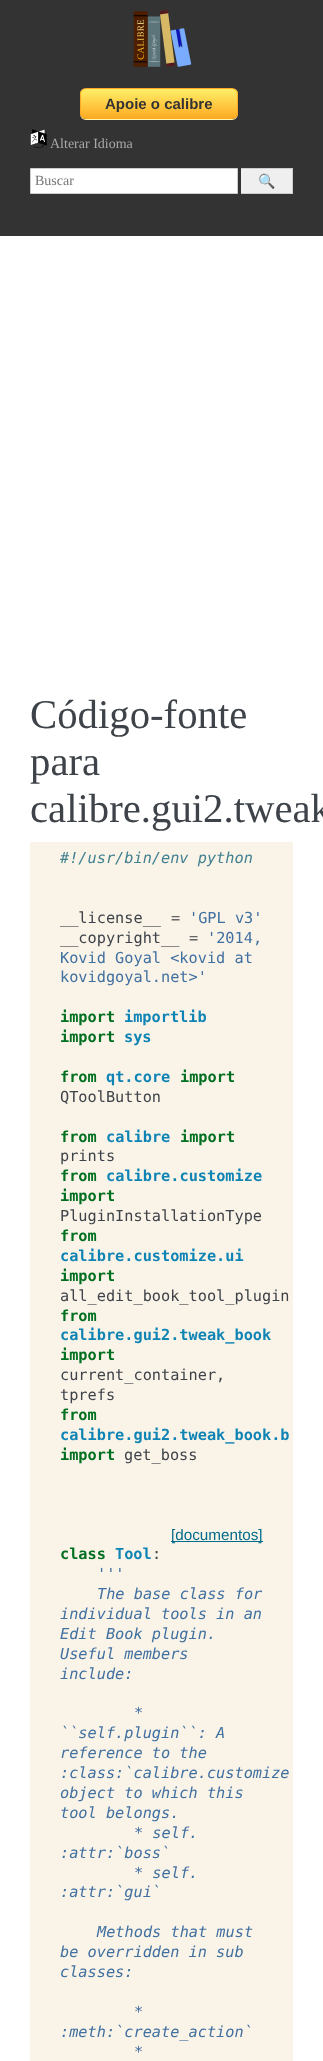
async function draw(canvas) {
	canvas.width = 323;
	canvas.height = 2061;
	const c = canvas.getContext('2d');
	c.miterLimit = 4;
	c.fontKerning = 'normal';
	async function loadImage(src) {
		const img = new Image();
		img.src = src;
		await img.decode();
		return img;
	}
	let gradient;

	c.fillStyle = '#fff';
	c.fillRect(0, 0, 323, 2061);
	c.fillStyle = '#333';
	c.fillRect(0, 0, 323, 236);
	c.drawImage(await loadImage('img1.png'), 133, 10, 59, 57);
	c.fillStyle = '#fff6af';
	c.beginPath();
	c.moveTo(80, 113);
	c.lineTo(80, 114);
	c.bezierCurveTo(80, 117, 83, 120, 86, 120);
	c.lineTo(232, 120);
	c.bezierCurveTo(235, 120, 238, 117, 238, 114);
	c.lineTo(238, 113);
	c.bezierCurveTo(238, 116, 235, 119, 232, 119);
	c.lineTo(86, 119);
	c.bezierCurveTo(83, 119, 80, 116, 80, 113);
	c.closePath();
	c.fill();
	c.save();
	c.beginPath();
	c.roundRect(80, 88, 158, 31, 6);
	c.clip();
	gradient = c.createLinearGradient(159, 89, 159, 118);
	gradient.addColorStop(0.05, '#ffec64');
	gradient.addColorStop(1, '#ffab23');
	c.fillStyle = gradient;
	c.fillRect(80, 89, 158, 29);
	c.restore();
	c.beginPath();
	c.roundRect(80.5, 88.5, 157, 30, 5.5);
	c.strokeStyle = '#fa2';
	c.stroke();
	c.font = 'bold 15px Liberation Sans';
	c.fillStyle = '#333';
	c.fillText('Apoie o calibre', 105, 109);
	c.drawImage(await loadImage('img2.png'), 30, 129, 17, 19);
	c.font = '14px Liberation Serif';
	c.fillStyle = '#aaa';
	c.fillText('Alterar Idioma', 50, 148);
	c.fillStyle = '#fff';
	c.beginPath();
	c.rect(30.5, 168.5, 207, 25);
	c.fill();
	c.strokeStyle = '#ccc';
	c.stroke();
	c.fillStyle = '#757575';
	c.fillText('Buscar', 35, 185);
	for (const [x, y, w, h, color] of [
		[241, 169, 51, 24, '#efefef'],
		[241, 168, 52, 1, '#ccc'],
		[292, 168, 1, 26, '#ccc'],
		[241, 193, 52, 1, '#ccc'],
	]) {
		c.fillStyle = color;
		c.fillRect(x, y, w, h);
	}
	c.font = '14px Noto Color Emoji';
	c.fillStyle = '#000';
	c.fillText('🔍', 258, 186);
	c.font = '40.75px Liberation Serif';
	c.fillStyle = '#3e4349';
	for (const [text, x, y] of [
		['Código-fonte', 30, 728],
		['para', 30, 775],
		['calibre.gui2.tweak', 30, 822],
	]) {
		c.fillText(text, x, y);
	}
	c.fillStyle = '#faf3e8';
	c.fillRect(30, 842, 263, 1219);
	c.font = 'italic 15.25px DejaVu Sans Mono';
	c.fillStyle = '#408090';
	c.fillText('#!/usr/bin/env python', 60, 863);
	c.font = '15.25px DejaVu Sans Mono';
	c.fillStyle = '#3e4349';
	c.fillText('__license__', 60, 923);
	c.fillStyle = '#666';
	c.fillText('=', 171, 923);
	c.fillStyle = '#4070a0';
	c.fillText('\'GPL v3\'', 189, 923);
	c.fillStyle = '#3e4349';
	c.fillText('__copyright__', 60, 943);
	c.fillStyle = '#666';
	c.fillText('=', 189, 943);
	c.fillStyle = '#4070a0';
	for (const [text, x, y] of [
		['\'2014,', 207, 943],
		['Kovid Goyal <kovid at', 60, 963],
		['kovidgoyal.net>\'', 60, 982],
	]) {
		c.fillText(text, x, y);
	}
	c.font = 'bold 15.25px DejaVu Sans Mono';
	c.fillStyle = '#007020';
	c.fillText('import', 60, 1022);
	c.fillStyle = '#0e84b5';
	c.fillText('importlib', 124, 1022);
	c.fillStyle = '#007020';
	c.fillText('import', 60, 1042);
	c.fillStyle = '#0e84b5';
	c.fillText('sys', 124, 1042);
	c.fillStyle = '#007020';
	c.fillText('from', 60, 1082);
	c.fillStyle = '#0e84b5';
	c.fillText('qt.core', 106, 1082);
	c.fillStyle = '#007020';
	c.fillText('import', 180, 1082);
	c.font = '15.25px DejaVu Sans Mono';
	c.fillStyle = '#3e4349';
	c.fillText('QToolButton', 60, 1102);
	c.font = 'bold 15.25px DejaVu Sans Mono';
	c.fillStyle = '#007020';
	c.fillText('from', 60, 1142);
	c.fillStyle = '#0e84b5';
	c.fillText('calibre', 106, 1142);
	c.fillStyle = '#007020';
	c.fillText('import', 180, 1142);
	c.font = '15.25px DejaVu Sans Mono';
	c.fillStyle = '#3e4349';
	c.fillText('prints', 60, 1161);
	c.font = 'bold 15.25px DejaVu Sans Mono';
	c.fillStyle = '#007020';
	c.fillText('from', 60, 1181);
	c.fillStyle = '#0e84b5';
	c.fillText('calibre.customize', 106, 1181);
	c.fillStyle = '#007020';
	c.fillText('import', 60, 1201);
	c.font = '15.25px DejaVu Sans Mono';
	c.fillStyle = '#3e4349';
	c.fillText('PluginInstallationType', 60, 1221);
	c.font = 'bold 15.25px DejaVu Sans Mono';
	c.fillStyle = '#007020';
	c.fillText('from', 60, 1241);
	c.fillStyle = '#0e84b5';
	c.fillText('calibre.customize.ui', 60, 1261);
	c.fillStyle = '#007020';
	c.fillText('import', 60, 1281);
	c.font = '15.25px DejaVu Sans Mono';
	c.fillStyle = '#3e4349';
	c.fillText('all_edit_book_tool_plugin', 60, 1301);
	c.font = 'bold 15.25px DejaVu Sans Mono';
	c.fillStyle = '#007020';
	c.fillText('from', 60, 1321);
	c.fillStyle = '#0e84b5';
	c.fillText('calibre.gui2.tweak_book', 60, 1340);
	c.fillStyle = '#007020';
	c.fillText('import', 60, 1360);
	c.font = '15.25px DejaVu Sans Mono';
	c.fillStyle = '#3e4349';
	c.fillText('current_container,', 60, 1380);
	c.fillText('tprefs', 60, 1400);
	c.font = 'bold 15.25px DejaVu Sans Mono';
	c.fillStyle = '#007020';
	c.fillText('from', 60, 1420);
	c.fillStyle = '#0e84b5';
	c.fillText('calibre.gui2.tweak_book.b', 60, 1440);
	c.fillStyle = '#007020';
	c.fillText('import', 60, 1460);
	c.font = '15.25px DejaVu Sans Mono';
	c.fillStyle = '#3e4349';
	c.fillText('get_boss', 124, 1460);
	c.fillStyle = '#006b8b';
	c.fillRect(171, 1541, 92, 1);
	c.font = '15.25px Liberation Sans';
	c.fillText('[documentos]', 171, 1540);
	c.font = 'bold 15.25px DejaVu Sans Mono';
	c.fillStyle = '#007020';
	c.fillText('class', 60, 1559);
	c.fillStyle = '#0e84b5';
	c.fillText('Tool', 115, 1559);
	c.font = '15.25px DejaVu Sans Mono';
	c.fillStyle = '#3e4349';
	c.fillText(':', 152, 1559);
	c.font = 'italic 15.25px DejaVu Sans Mono';
	c.fillStyle = '#4070a0';
	for (const [text, x, y] of [
		['\'\'\'', 97, 1579],
		['The base class for', 97, 1599],
		['individual tools in an', 60, 1619],
		['Edit Book plugin.', 60, 1639],
		['Useful members', 60, 1659],
		['include:', 60, 1679],
		['*', 134, 1718],
		['``self.plugin``: A', 60, 1738],
		['reference to the', 60, 1758],
		[':class:`calibre.customize', 60, 1778],
		['object to which this', 60, 1798],
		['tool belongs.', 60, 1818],
		['* self.', 134, 1838],
		[':attr:`boss`', 60, 1858],
		['* self.', 134, 1878],
		[':attr:`gui`', 60, 1897],
		['Methods that must', 97, 1937],
		['be overridden in sub', 60, 1957],
		['classes:', 60, 1977],
		['*', 134, 2017],
		[':meth:`create_action`', 60, 2037],
		['*', 134, 2057],
	]) {
		c.fillText(text, x, y);
	}
}

draw(document.querySelector('canvas'));
